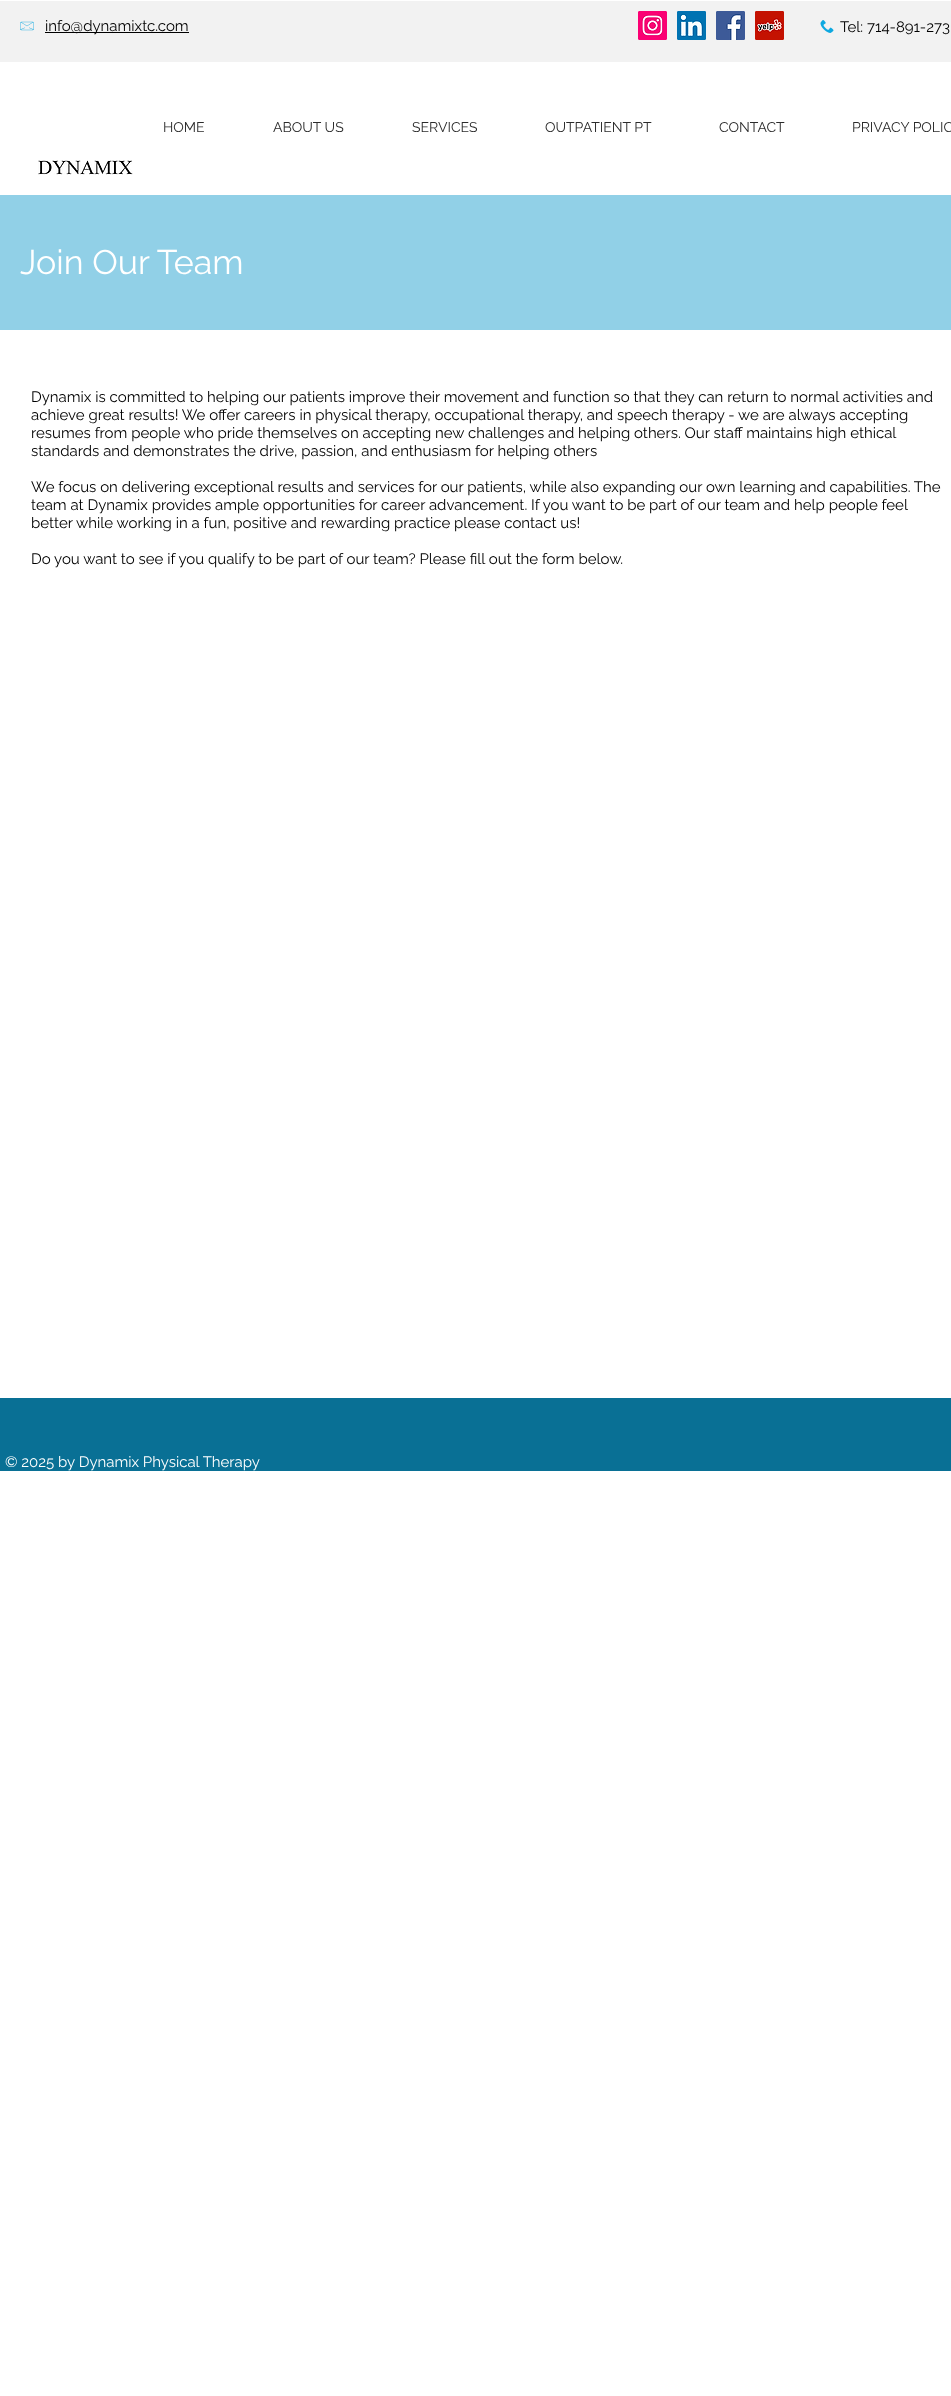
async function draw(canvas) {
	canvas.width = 951;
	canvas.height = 2396;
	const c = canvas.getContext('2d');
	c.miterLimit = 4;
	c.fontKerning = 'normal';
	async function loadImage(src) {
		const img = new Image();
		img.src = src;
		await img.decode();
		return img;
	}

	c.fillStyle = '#fff';
	c.fillRect(0, 0, 951, 2396);
	c.fillStyle = '#f2f2f2';
	c.fillRect(0, 1, 951, 61);
	c.drawImage(await loadImage('img1.png'), 20, 21, 14, 10);
	c.fillStyle = '#000';
	c.fillRect(45, 32, 144, 1);
	c.font = '15px Raleway';
	c.fillText('info@dynamixtc.com', 45, 31);
	c.drawImage(await loadImage('img2.png'), 638, 11, 29, 29);
	c.drawImage(await loadImage('img3.png'), 677, 11, 29, 29);
	c.drawImage(await loadImage('img4.png'), 716, 11, 29, 29);
	c.drawImage(await loadImage('img5.png'), 755, 11, 29, 29);
	c.drawImage(await loadImage('img6.png'), 820, 20, 14, 13);
	c.fillText('Tel: 714-891-273', 840, 32);
	c.font = '14px Raleway';
	c.fillStyle = '#2b2b2b';
	for (const [text, x, y] of [
		['HOME', 163, 132],
		['ABOUT US', 273, 132],
		['SERVICES', 412, 132],
		['OUTPATIENT PT', 545, 132],
		['CONTACT', 719, 132],
		['PRIVACY POLIC', 852, 132],
	]) {
		c.fillText(text, x, y);
	}
	c.drawImage(await loadImage('img7.png'), 38, 160, 95, 15);
	c.fillStyle = '#91d0e7';
	c.fillRect(0, 195, 951, 135);
	c.font = '34px Raleway';
	c.fillStyle = '#fff';
	c.fillText('Join Our Team', 20, 274);
	c.font = '15px Raleway';
	c.fillStyle = '#000';
	for (const [text, x, y] of [
		['Dynamix is committed to helping our patients improve their movement and function so that they can return to normal activities and', 31, 402],
		['achieve great results! We offer careers in physical therapy, occupational therapy, and speech therapy - we are always accepting', 31, 420],
		['resumes from people who pride themselves on accepting new challenges and helping others. Our staff maintains high ethical', 31, 438],
		['standards and demonstrates the drive, passion, and enthusiasm for helping others', 31, 456],
		['We focus on delivering exceptional results and services for our patients, while also expanding our own learning and capabilities. The', 31, 492],
		['team at Dynamix provides ample opportunities for career advancement. If you want to be part of our team and help people feel', 31, 510],
		['better while working in a fun, positive and rewarding practice please contact us!', 31, 528],
		['Do you want to see if you qualify to be part of our team? Please fill out the form below.', 31, 564],
	]) {
		c.fillText(text, x, y);
	}
	c.fillStyle = '#097095';
	c.fillRect(0, 1398, 951, 73);
	c.fillStyle = '#fff';
	c.fillText('© 2025 by Dynamix Physical Therapy', 5, 1467);
}

draw(document.querySelector('canvas'));
